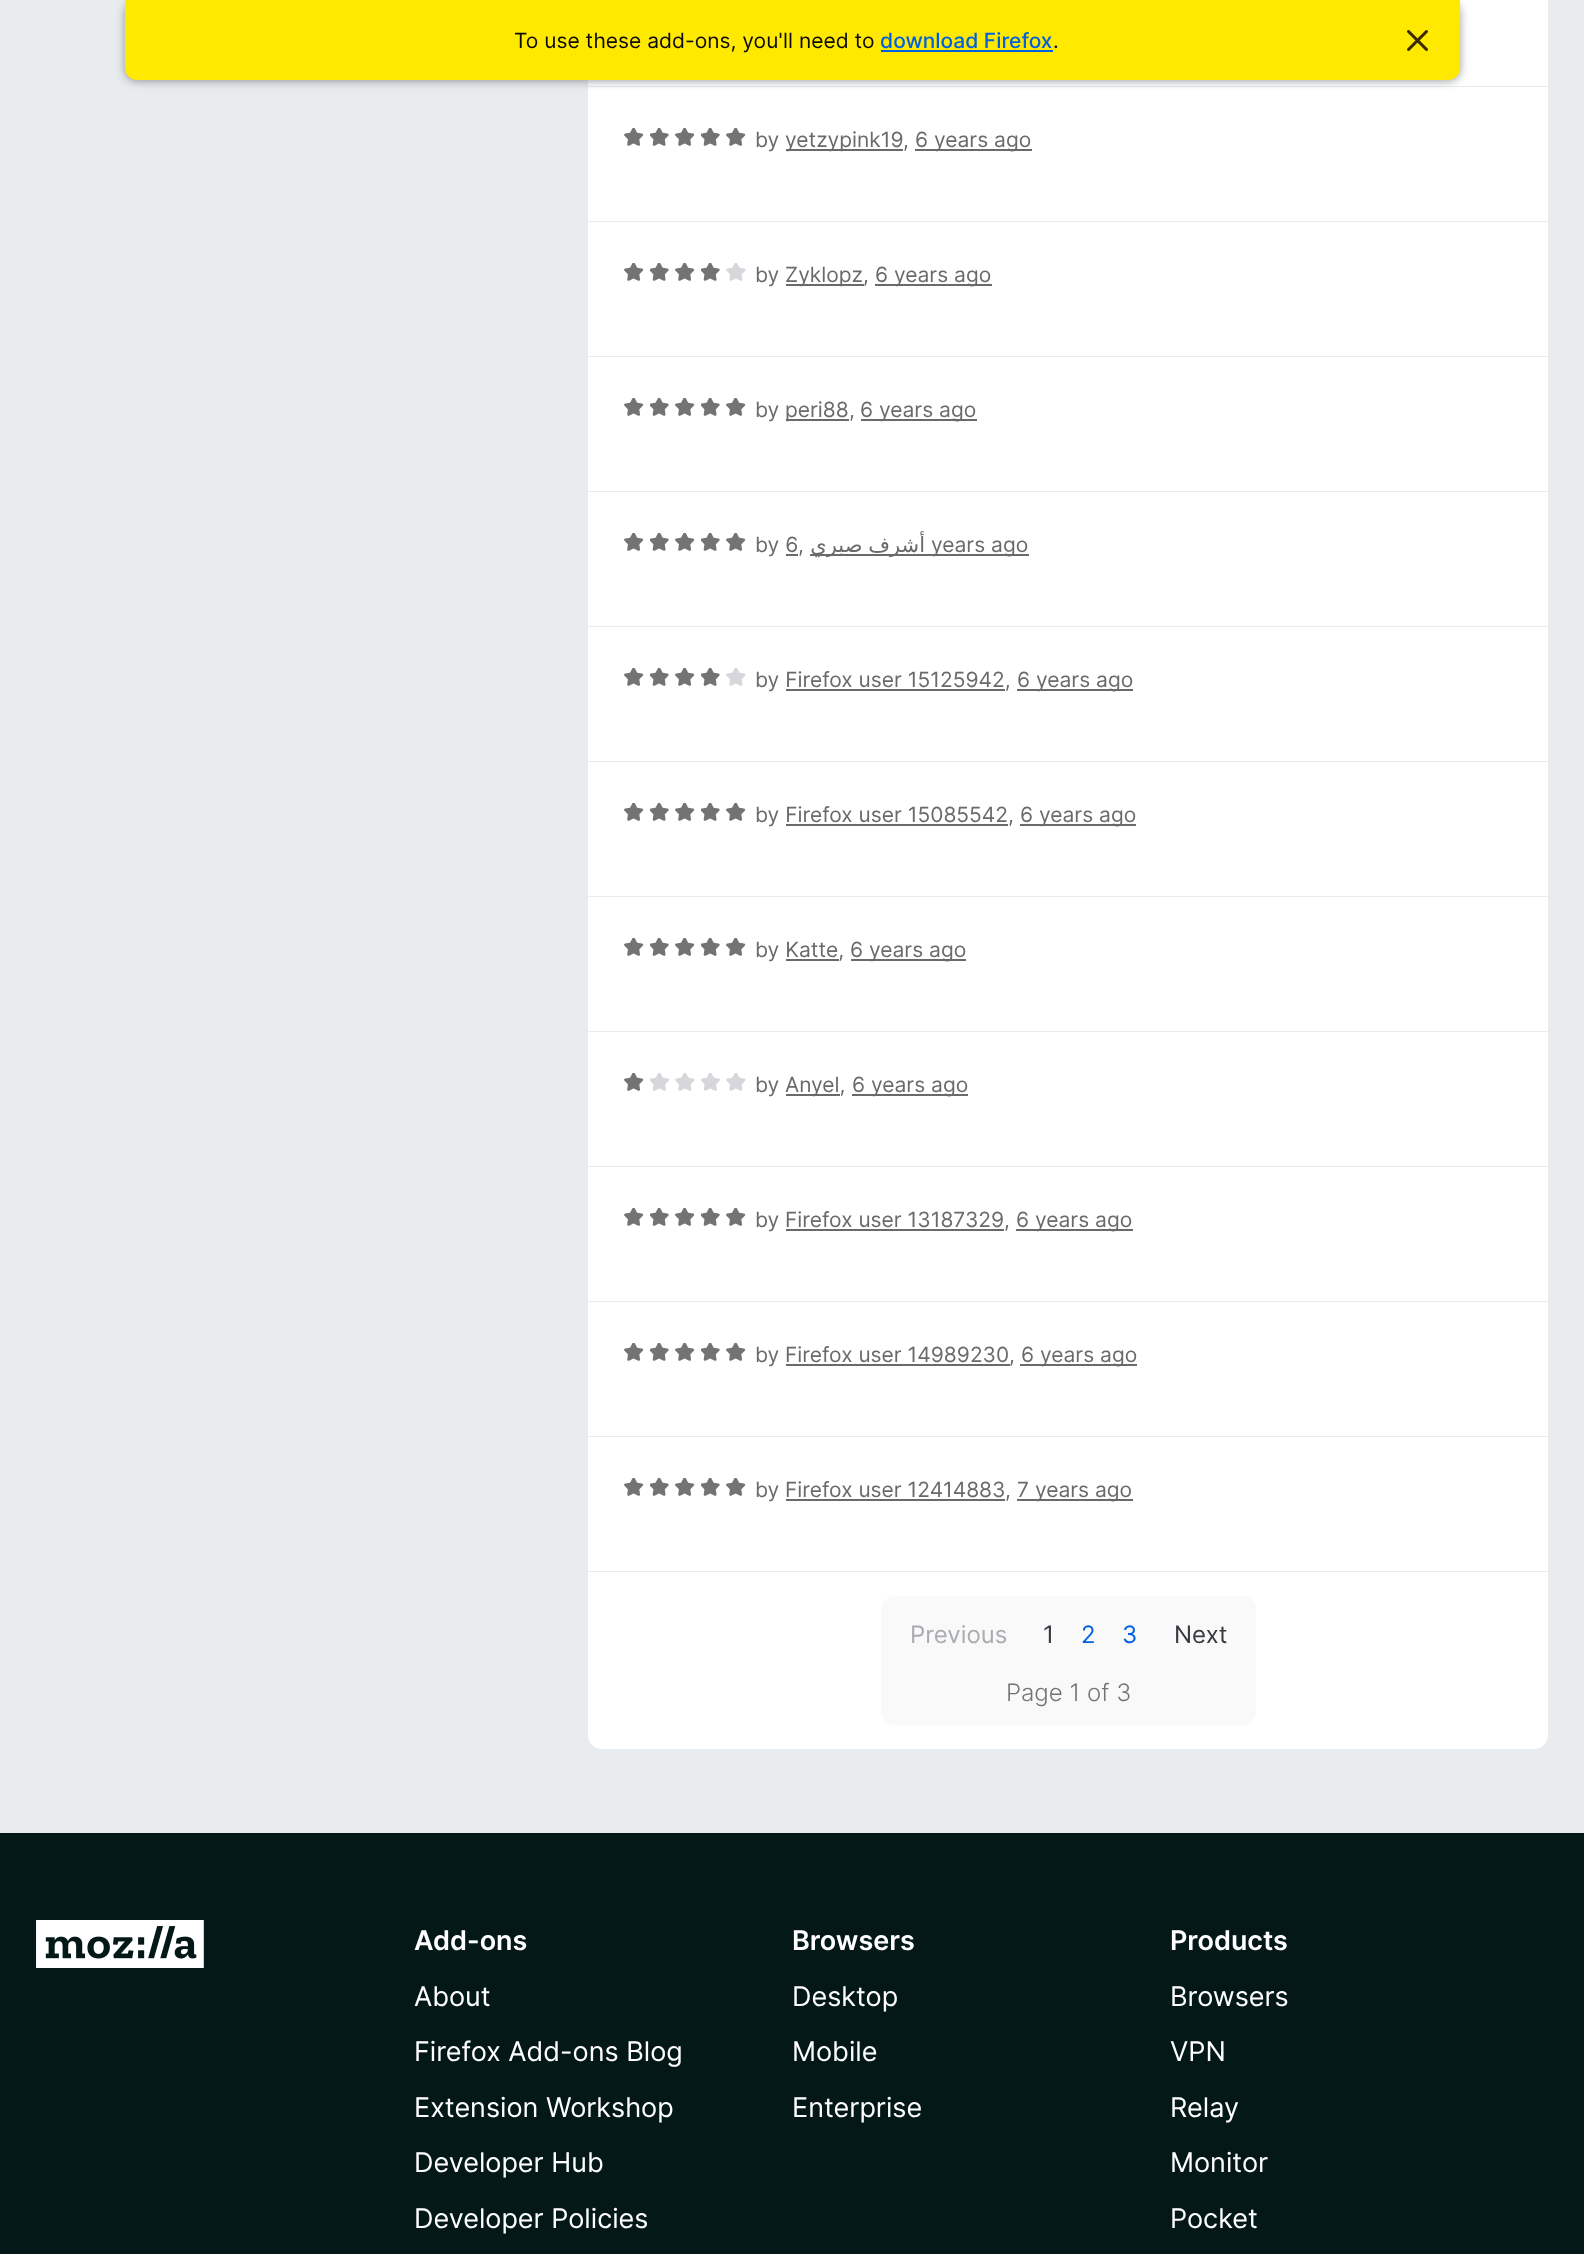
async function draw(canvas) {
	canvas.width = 1584;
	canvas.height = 2254;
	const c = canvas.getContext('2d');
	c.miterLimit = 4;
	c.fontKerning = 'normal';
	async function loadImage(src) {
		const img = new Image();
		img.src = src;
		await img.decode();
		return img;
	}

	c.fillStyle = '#e9ecef';
	c.fillRect(0, 0, 1584, 2254);
	c.fillStyle = '#fff';
	c.fillRect(588, 0, 960, 86);
	c.fillRect(588, 87, 960, 134);
	c.fillStyle = '#343a4080';
	c.filter = 'blur(5px)';
	c.beginPath();
	c.roundRect(125, 2, 1335, 79, 12);
	c.fill();
	c.filter = 'none';
	c.fillStyle = '#ffe900';
	c.beginPath();
	c.roundRect(125, 0, 1335, 80, [0, 0, 12, 12]);
	c.fill();
	c.font = '21px Inter';
	c.fillStyle = '#0c0c0d';
	c.fillText('To use these add-ons, you\'ll need to', 514, 48);
	c.font = '500 21px Inter';
	c.fillStyle = '#0060df';
	c.fillText('download Firefox', 880, 48);
	c.font = '21px Inter';
	c.fillStyle = '#0c0c0d';
	c.fillText('.', 1053, 48);
	c.fillStyle = '#0060df';
	c.fillRect(881, 50, 172, 2);
	c.drawImage(await loadImage('img1.png'), 1407, 30, 21, 21);
	c.drawImage(await loadImage('img2.png'), 624, 128, 20, 18);
	c.drawImage(await loadImage('img3.png'), 650, 128, 19, 18);
	c.drawImage(await loadImage('img2.png'), 675, 128, 20, 18);
	c.drawImage(await loadImage('img3.png'), 701, 128, 19, 18);
	c.drawImage(await loadImage('img2.png'), 726, 128, 20, 18);
	c.fillStyle = '#6a6a6a';
	c.fillText('by', 755, 147);
	c.fillRect(786, 149, 117, 2);
	c.fillText('yetzypink19', 785, 147);
	c.fillText(',', 903, 147);
	c.fillRect(915, 149, 117, 2);
	c.fillText('6 years ago', 915, 147);
	c.fillStyle = '#fff';
	c.fillRect(588, 222, 960, 134);
	c.drawImage(await loadImage('img2.png'), 624, 263, 20, 18);
	c.drawImage(await loadImage('img3.png'), 650, 263, 19, 18);
	c.drawImage(await loadImage('img2.png'), 675, 263, 20, 18);
	c.drawImage(await loadImage('img3.png'), 701, 263, 19, 18);
	c.drawImage(await loadImage('img4.png'), 726, 263, 20, 18);
	c.fillStyle = '#6a6a6a';
	c.fillText('by', 755, 282);
	c.fillRect(786, 284, 78, 2);
	c.fillText('Zyklopz,', 785, 282);
	c.fillRect(875, 284, 117, 2);
	c.fillText('6 years ago', 875, 282);
	c.fillStyle = '#fff';
	c.fillRect(588, 357, 960, 134);
	c.drawImage(await loadImage('img2.png'), 624, 398, 20, 18);
	c.drawImage(await loadImage('img3.png'), 650, 398, 19, 18);
	c.drawImage(await loadImage('img2.png'), 675, 398, 20, 18);
	c.drawImage(await loadImage('img3.png'), 701, 398, 19, 18);
	c.drawImage(await loadImage('img2.png'), 726, 398, 20, 18);
	c.fillStyle = '#6a6a6a';
	c.fillText('by', 755, 417);
	c.fillRect(786, 419, 63, 2);
	c.fillText('peri88', 785, 417);
	c.fillText(',', 849, 417);
	c.fillRect(861, 419, 116, 2);
	c.fillText('6 years ago', 860, 417);
	c.fillStyle = '#fff';
	c.fillRect(588, 492, 960, 134);
	c.drawImage(await loadImage('img2.png'), 624, 533, 20, 18);
	c.drawImage(await loadImage('img3.png'), 650, 533, 19, 18);
	c.drawImage(await loadImage('img2.png'), 675, 533, 20, 18);
	c.drawImage(await loadImage('img3.png'), 701, 533, 19, 18);
	c.drawImage(await loadImage('img2.png'), 726, 533, 20, 18);
	c.fillStyle = '#6a6a6a';
	c.fillText('by 6', 755, 552);
	c.fillText(',', 798, 552);
	c.fillRect(810, 554, 219, 2);
	c.wordSpacing = '-1px';
	c.direction = 'rtl';
	c.font = '21px DejaVu Sans';
	c.fillText('أشرف صبري', 925, 552);
	c.wordSpacing = '0px';
	c.direction = 'ltr';
	c.font = '21px Inter';
	c.fillText('years ago', 931, 552);
	c.fillRect(786, 554, 12, 2);
	c.fillStyle = '#fff';
	c.fillRect(588, 627, 960, 134);
	c.drawImage(await loadImage('img2.png'), 624, 668, 20, 18);
	c.drawImage(await loadImage('img3.png'), 650, 668, 19, 18);
	c.drawImage(await loadImage('img2.png'), 675, 668, 20, 18);
	c.drawImage(await loadImage('img3.png'), 701, 668, 19, 18);
	c.drawImage(await loadImage('img4.png'), 726, 668, 20, 18);
	c.fillStyle = '#6a6a6a';
	c.fillText('by Firefox user 15125942,', 755, 687);
	c.fillRect(1017, 689, 116, 2);
	c.fillText('6 years ago', 1017, 687);
	c.fillRect(786, 689, 219, 2);
	c.fillStyle = '#fff';
	c.fillRect(588, 762, 960, 134);
	c.drawImage(await loadImage('img2.png'), 624, 803, 20, 18);
	c.drawImage(await loadImage('img3.png'), 650, 803, 19, 18);
	c.drawImage(await loadImage('img2.png'), 675, 803, 20, 18);
	c.drawImage(await loadImage('img3.png'), 701, 803, 19, 18);
	c.drawImage(await loadImage('img2.png'), 726, 803, 20, 18);
	c.fillStyle = '#6a6a6a';
	c.fillText('by Firefox user 15085542,', 755, 822);
	c.fillRect(1020, 824, 116, 2);
	c.fillText('6 years ago', 1020, 822);
	c.fillRect(786, 824, 222, 2);
	c.fillStyle = '#fff';
	c.fillRect(588, 897, 960, 134);
	c.drawImage(await loadImage('img2.png'), 624, 938, 20, 18);
	c.drawImage(await loadImage('img3.png'), 650, 938, 19, 18);
	c.drawImage(await loadImage('img2.png'), 675, 938, 20, 18);
	c.drawImage(await loadImage('img3.png'), 701, 938, 19, 18);
	c.drawImage(await loadImage('img2.png'), 726, 938, 20, 18);
	c.fillStyle = '#6a6a6a';
	c.fillText('by Katte,', 755, 957);
	c.fillRect(851, 959, 115, 2);
	c.fillText('6 years ago', 850, 957);
	c.fillRect(786, 959, 53, 2);
	c.fillStyle = '#fff';
	c.fillRect(588, 1032, 960, 134);
	c.drawImage(await loadImage('img2.png'), 624, 1073, 20, 18);
	c.drawImage(await loadImage('img5.png'), 650, 1073, 19, 18);
	c.drawImage(await loadImage('img4.png'), 675, 1073, 20, 18);
	c.drawImage(await loadImage('img5.png'), 701, 1073, 19, 18);
	c.drawImage(await loadImage('img4.png'), 726, 1073, 20, 18);
	c.fillStyle = '#6a6a6a';
	c.fillText('by', 755, 1092);
	c.fillRect(786, 1094, 54, 2);
	c.fillText('Anyel,', 785, 1092);
	c.fillRect(852, 1094, 116, 2);
	c.fillText('6 years ago', 852, 1092);
	c.fillStyle = '#fff';
	c.fillRect(588, 1167, 960, 134);
	c.drawImage(await loadImage('img2.png'), 624, 1208, 20, 18);
	c.drawImage(await loadImage('img3.png'), 650, 1208, 19, 18);
	c.drawImage(await loadImage('img2.png'), 675, 1208, 20, 18);
	c.drawImage(await loadImage('img3.png'), 701, 1208, 19, 18);
	c.drawImage(await loadImage('img2.png'), 726, 1208, 20, 18);
	c.fillStyle = '#6a6a6a';
	c.fillText('by', 755, 1227);
	c.fillText('Firefox user 13187329', 785, 1227);
	c.fillRect(786, 1229, 218, 2);
	c.fillText(',', 1004, 1227);
	c.fillRect(1016, 1229, 117, 2);
	c.fillText('6 years ago', 1016, 1227);
	c.fillStyle = '#fff';
	c.fillRect(588, 1302, 960, 134);
	c.drawImage(await loadImage('img2.png'), 624, 1343, 20, 18);
	c.drawImage(await loadImage('img3.png'), 650, 1343, 19, 18);
	c.drawImage(await loadImage('img2.png'), 675, 1343, 20, 18);
	c.drawImage(await loadImage('img3.png'), 701, 1343, 19, 18);
	c.drawImage(await loadImage('img2.png'), 726, 1343, 20, 18);
	c.fillStyle = '#6a6a6a';
	c.fillText('by', 755, 1362);
	c.fillText('Firefox user 14989230', 785, 1362);
	c.fillRect(786, 1364, 224, 2);
	c.fillText(',', 1009, 1362);
	c.fillRect(1020, 1364, 117, 2);
	c.fillText('6 years ago', 1021, 1362);
	c.fillStyle = '#fff';
	c.fillRect(588, 1437, 960, 134);
	c.drawImage(await loadImage('img2.png'), 624, 1478, 20, 18);
	c.drawImage(await loadImage('img3.png'), 650, 1478, 19, 18);
	c.drawImage(await loadImage('img2.png'), 675, 1478, 20, 18);
	c.drawImage(await loadImage('img3.png'), 701, 1478, 19, 18);
	c.drawImage(await loadImage('img2.png'), 726, 1478, 20, 18);
	c.fillStyle = '#6a6a6a';
	c.fillText('by', 755, 1497);
	c.fillText('Firefox user 12414883', 785, 1497);
	c.fillRect(786, 1499, 219, 2);
	c.fillText(',', 1005, 1497);
	c.fillRect(1017, 1499, 116, 2);
	c.fillText('7 years ago', 1017, 1497);
	c.fillStyle = '#fff';
	c.beginPath();
	c.roundRect(588, 1572, 960, 177, [0, 0, 14, 14]);
	c.fill();
	c.fillStyle = '#f9f9fa';
	c.beginPath();
	c.roundRect(881, 1596, 375, 129, 14);
	c.fill();
	c.font = '24px Inter';
	c.fillStyle = '#aaadb0';
	c.fillText('Previous', 910, 1643);
	c.fillStyle = '#343a40';
	c.fillText('1', 1043, 1643);
	c.fillStyle = '#0060df';
	c.fillText('2', 1081, 1643);
	c.fillText('3', 1122, 1643);
	c.fillStyle = '#343a40';
	c.fillText('Next', 1174, 1643);
	c.font = '300 24px Inter';
	c.fillStyle = '#737373';
	c.fillText('Page 1 of 3', 1006, 1701);
	c.fillStyle = '#051818';
	c.fillRect(0, 1833, 1584, 421);
	c.drawImage(await loadImage('img6.png'), 36, 1920, 168, 48);
	c.font = '600 27px Inter';
	c.fillStyle = '#fff';
	c.fillText('Add-ons', 414, 1950);
	c.font = '27px Inter';
	for (const [text, x, y] of [
		['About', 414, 2006],
		['Firefox Add-ons Blog', 414, 2061],
		['Extension Workshop', 414, 2117],
		['Developer Hub', 414, 2172],
		['Developer Policies', 414, 2228],
	]) {
		c.fillText(text, x, y);
	}
	c.font = '600 27px Inter';
	c.fillText('Browsers', 792, 1950);
	c.font = '27px Inter';
	for (const [text, x, y] of [
		['Desktop', 792, 2006],
		['Mobile', 792, 2061],
		['Enterprise', 792, 2117],
	]) {
		c.fillText(text, x, y);
	}
	c.font = '600 27px Inter';
	c.fillText('Products', 1170, 1950);
	c.font = '27px Inter';
	for (const [text, x, y] of [
		['Browsers', 1170, 2006],
		['VPN', 1170, 2061],
		['Relay', 1170, 2117],
		['Monitor', 1170, 2172],
		['Pocket', 1170, 2228],
	]) {
		c.fillText(text, x, y);
	}
}

draw(document.querySelector('canvas'));
